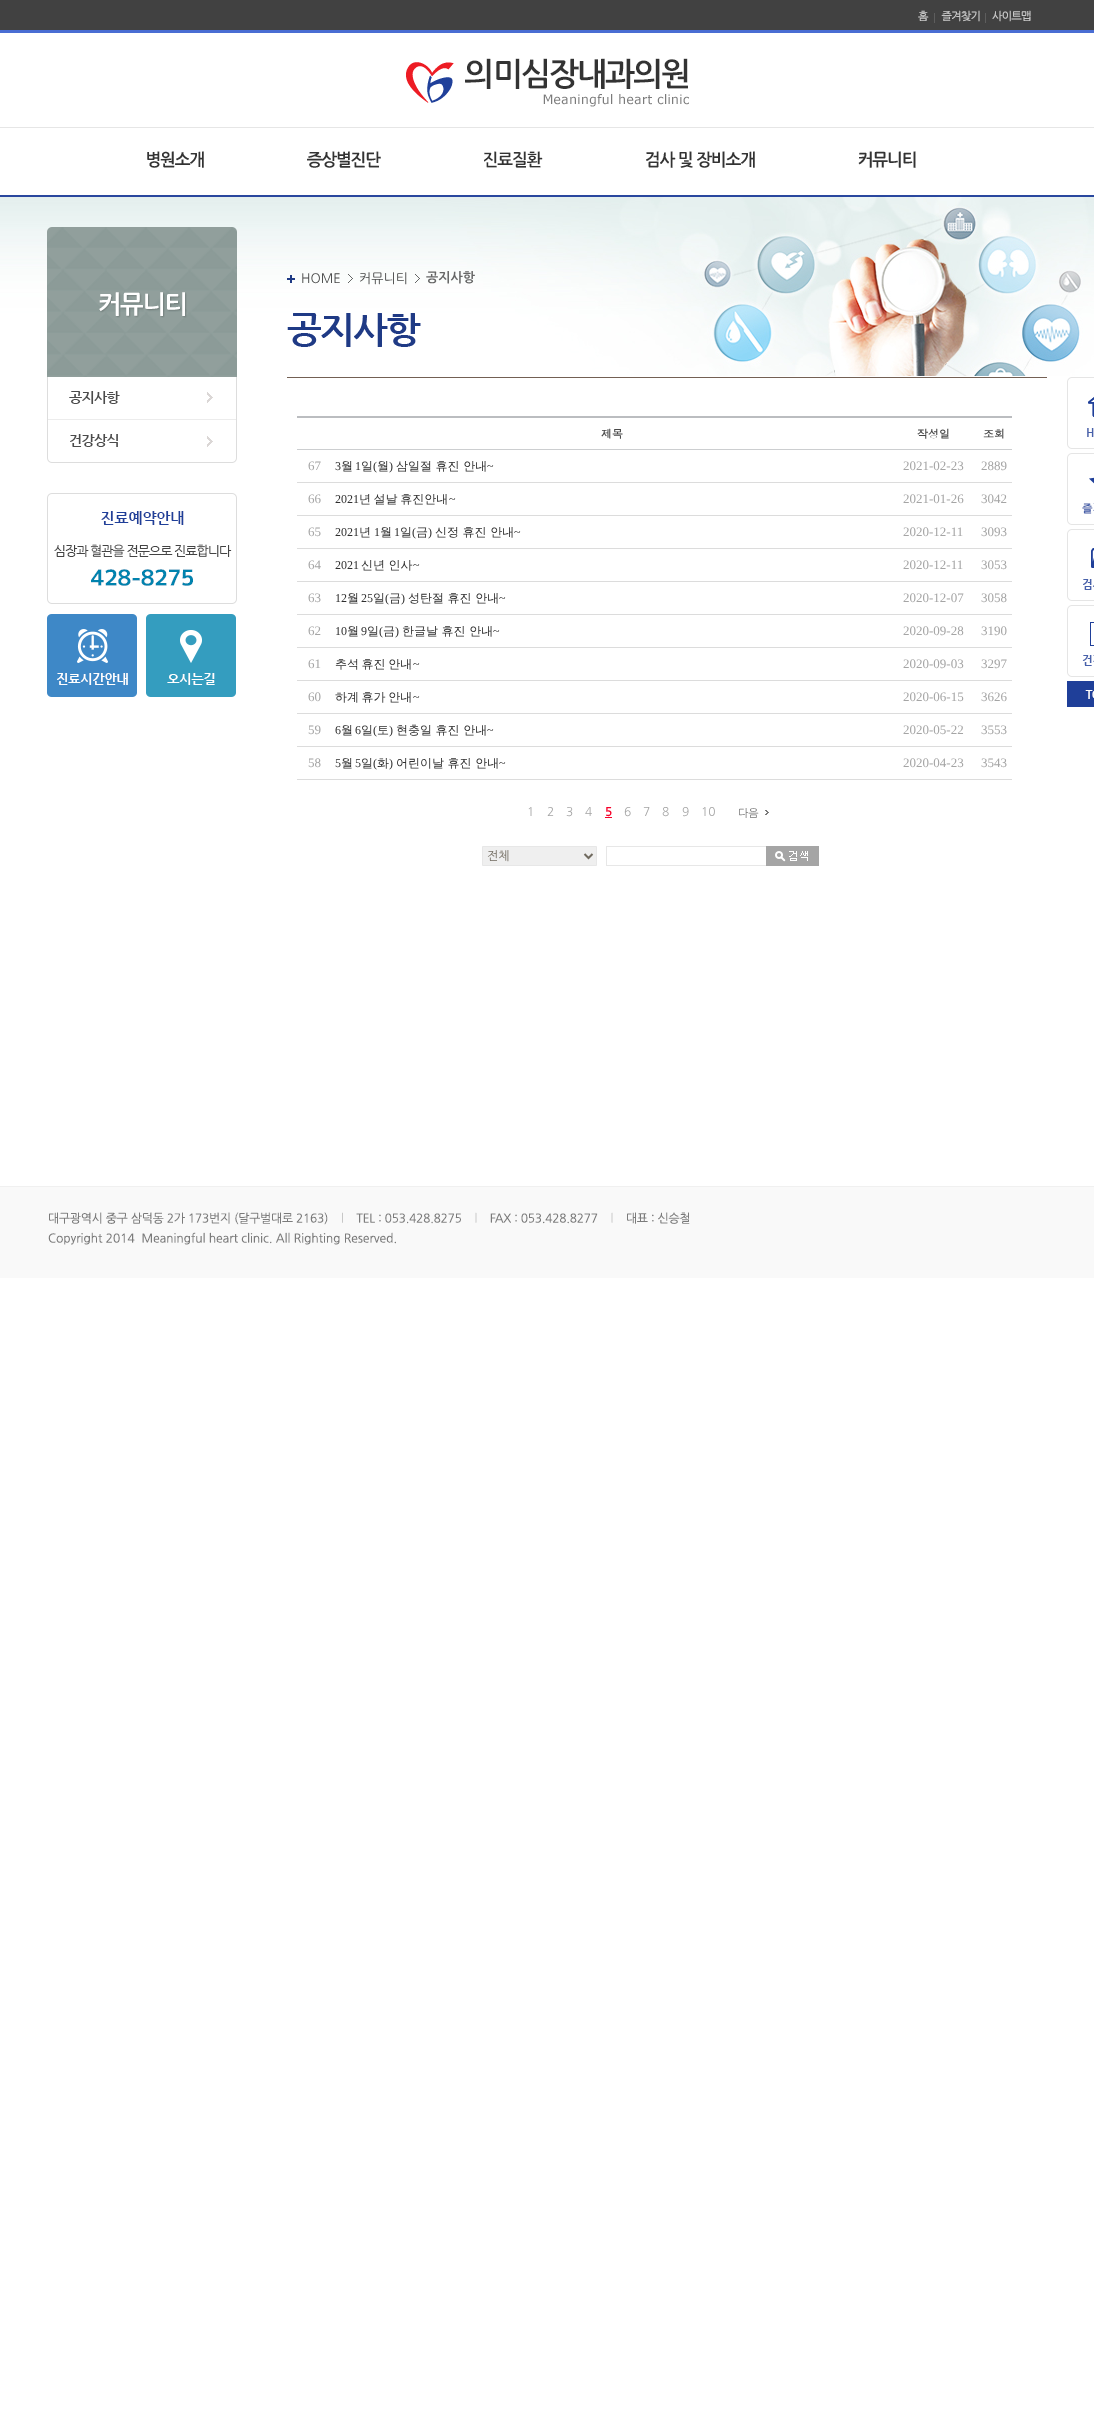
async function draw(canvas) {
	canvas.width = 1094;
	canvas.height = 2411;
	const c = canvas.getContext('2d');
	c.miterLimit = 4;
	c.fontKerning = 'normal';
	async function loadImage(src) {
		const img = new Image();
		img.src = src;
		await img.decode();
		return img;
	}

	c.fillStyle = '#fff';
	c.fillRect(0, 0, 1094, 2411);
	c.drawImage(await loadImage('img1.png'), 0, 0, 1094, 128);
	c.fillStyle = '#29479e';
	c.fillRect(0, 195, 1094, 2);
	c.fillStyle = '#5d5d5d';
	c.fillRect(934, 13, 1, 10);
	c.drawImage(await loadImage('img2.png'), 918, 10, 11, 11);
	c.fillRect(985, 13, 1, 10);
	c.drawImage(await loadImage('img3.png'), 941, 10, 39, 12);
	c.drawImage(await loadImage('img4.png'), 992, 10, 39, 12);
	c.drawImage(await loadImage('img5.png'), 406, 58, 283, 49);
	c.drawImage(await loadImage('img6.png'), 147, 151, 57, 17);
	c.drawImage(await loadImage('img7.png'), 307, 151, 74, 17);
	c.drawImage(await loadImage('img8.png'), 484, 151, 59, 17);
	c.drawImage(await loadImage('img9.png'), 646, 151, 109, 17);
	c.drawImage(await loadImage('img10.png'), 858, 151, 58, 17);
	c.drawImage(await loadImage('img11.png'), 0, 197, 1094, 179);
	c.drawImage(await loadImage('img12.png'), 47, 227, 190, 150);
	c.drawImage(await loadImage('img13.png'), 47, 377, 190, 43);
	c.drawImage(await loadImage('img14.png'), 47, 420, 190, 43);
	c.drawImage(await loadImage('img15.png'), 47, 493, 190, 111);
	c.drawImage(await loadImage('img16.png'), 47, 614, 90, 83);
	c.drawImage(await loadImage('img17.png'), 146, 614, 90, 83);
	c.drawImage(await loadImage('img18.png'), 287, 275, 8, 8);
	c.font = '13px NanumGothic';
	c.fillStyle = '#484848';
	c.fillText('HOME', 301, 283);
	c.drawImage(await loadImage('img19.png'), 348, 274, 5, 9);
	c.fillText('커뮤니티', 359, 283);
	c.drawImage(await loadImage('img19.png'), 415, 274, 5, 9);
	c.font = 'bold 13px NanumGothic';
	c.fillStyle = '#666';
	c.fillText('공지사항', 426, 282);
	c.fillStyle = '#736054';
	c.fillRect(287, 377, 760, 1);
	c.drawImage(await loadImage('img20.png'), 287, 313, 134, 34);
	c.fillStyle = '#bbbdc0';
	c.fillRect(297, 416, 715, 2);
	c.font = 'bold 11px Dotum';
	c.fillStyle = '#484848';
	c.fillText('제목', 601, 438);
	c.fillText('작성일', 917, 438);
	c.fillStyle = '#ccced0';
	c.fillRect(297, 449, 715, 1);
	c.fillStyle = '#484848';
	c.fillText('조회', 983, 438);
	c.font = '13px Liberation Serif';
	c.fillStyle = '#a5a5a5';
	c.fillText('67', 308, 470);
	c.font = '12px Liberation Serif';
	c.fillStyle = '#2e2e2e';
	c.fillText('3', 335, 470);
	c.font = '500 12px WenQuanYi Zen Hei';
	c.fillText('월', 341, 470);
	c.font = '12px Liberation Serif';
	c.fillText('1', 355, 470);
	c.font = '500 12px WenQuanYi Zen Hei';
	c.fillText('일', 361, 470);
	c.font = '12px Liberation Serif';
	c.fillText('(', 373, 470);
	c.font = '500 12px WenQuanYi Zen Hei';
	c.fillText('월', 377, 470);
	c.font = '12px Liberation Serif';
	c.fillText(')', 389, 470);
	c.font = '500 12px WenQuanYi Zen Hei';
	c.fillText('삼일절 휴진 안내', 396, 470);
	c.font = '12px Liberation Serif';
	c.fillText('~', 487, 470);
	c.font = '13px Liberation Serif';
	c.fillStyle = '#a5a5a5';
	c.fillText('2021-02-23', 903, 470);
	c.fillStyle = '#dcdcdc';
	c.fillRect(297, 482, 715, 1);
	c.fillStyle = '#a5a5a5';
	c.fillText('2889', 981, 470);
	c.fillText('66', 308, 503);
	c.font = '12px Liberation Serif';
	c.fillStyle = '#2e2e2e';
	c.fillText('2021', 335, 503);
	c.wordSpacing = '-1px';
	c.font = '500 12px WenQuanYi Zen Hei';
	c.fillText('년 설날 휴진안내', 359, 503);
	c.wordSpacing = '0px';
	c.font = '12px Liberation Serif';
	c.fillText('~', 449, 503);
	c.font = '13px Liberation Serif';
	c.fillStyle = '#a5a5a5';
	c.fillText('2021-01-26', 903, 503);
	c.fillStyle = '#dcdcdc';
	c.fillRect(297, 515, 715, 1);
	c.fillStyle = '#a5a5a5';
	c.fillText('3042', 981, 503);
	c.fillText('65', 308, 536);
	c.font = '12px Liberation Serif';
	c.fillStyle = '#2e2e2e';
	c.fillText('2021', 335, 536);
	c.font = '500 12px WenQuanYi Zen Hei';
	c.fillText('년', 359, 536);
	c.font = '12px Liberation Serif';
	c.fillText('1', 374, 536);
	c.font = '500 12px WenQuanYi Zen Hei';
	c.fillText('월', 380, 536);
	c.font = '12px Liberation Serif';
	c.fillText('1', 394, 536);
	c.font = '500 12px WenQuanYi Zen Hei';
	c.fillText('일', 400, 536);
	c.font = '12px Liberation Serif';
	c.fillText('(', 412, 536);
	c.font = '500 12px WenQuanYi Zen Hei';
	c.fillText('금', 416, 536);
	c.font = '12px Liberation Serif';
	c.fillText(')', 428, 536);
	c.font = '500 12px WenQuanYi Zen Hei';
	c.fillText('신정 휴진 안내', 435, 536);
	c.font = '12px Liberation Serif';
	c.fillText('~', 514, 536);
	c.font = '13px Liberation Serif';
	c.fillStyle = '#a5a5a5';
	c.fillText('2020-12-11', 903, 536);
	c.fillStyle = '#dcdcdc';
	c.fillRect(297, 548, 715, 1);
	c.fillStyle = '#a5a5a5';
	c.fillText('3093', 981, 536);
	c.fillText('64', 308, 569);
	c.font = '12px Liberation Serif';
	c.fillStyle = '#2e2e2e';
	c.fillText('2021', 335, 569);
	c.font = '500 12px WenQuanYi Zen Hei';
	c.fillText('신년 인사', 361, 569);
	c.font = '12px Liberation Serif';
	c.fillText('~', 413, 569);
	c.font = '13px Liberation Serif';
	c.fillStyle = '#a5a5a5';
	c.fillText('2020-12-11', 903, 569);
	c.fillStyle = '#dcdcdc';
	c.fillRect(297, 581, 715, 1);
	c.fillStyle = '#a5a5a5';
	c.fillText('3053', 981, 569);
	c.fillText('63', 308, 602);
	c.font = '12px Liberation Serif';
	c.fillStyle = '#2e2e2e';
	c.fillText('12', 335, 602);
	c.font = '500 12px WenQuanYi Zen Hei';
	c.fillText('월', 347, 602);
	c.font = '12px Liberation Serif';
	c.fillText('25', 361, 602);
	c.font = '500 12px WenQuanYi Zen Hei';
	c.fillText('일', 373, 602);
	c.font = '12px Liberation Serif';
	c.fillText('(', 385, 602);
	c.font = '500 12px WenQuanYi Zen Hei';
	c.fillText('금', 389, 602);
	c.font = '12px Liberation Serif';
	c.fillText(')', 401, 602);
	c.font = '500 12px WenQuanYi Zen Hei';
	c.fillText('성탄절 휴진 안내', 408, 602);
	c.font = '12px Liberation Serif';
	c.fillText('~', 499, 602);
	c.font = '13px Liberation Serif';
	c.fillStyle = '#a5a5a5';
	c.fillText('2020-12-07', 903, 602);
	c.fillStyle = '#dcdcdc';
	c.fillRect(297, 614, 715, 1);
	c.fillStyle = '#a5a5a5';
	c.fillText('3058', 981, 602);
	c.fillText('62', 308, 635);
	c.font = '12px Liberation Serif';
	c.fillStyle = '#2e2e2e';
	c.fillText('10', 335, 635);
	c.font = '500 12px WenQuanYi Zen Hei';
	c.fillText('월', 347, 635);
	c.font = '12px Liberation Serif';
	c.fillText('9', 361, 635);
	c.font = '500 12px WenQuanYi Zen Hei';
	c.fillText('일', 367, 635);
	c.font = '12px Liberation Serif';
	c.fillText('(', 379, 635);
	c.font = '500 12px WenQuanYi Zen Hei';
	c.fillText('금', 383, 635);
	c.font = '12px Liberation Serif';
	c.fillText(')', 395, 635);
	c.font = '500 12px WenQuanYi Zen Hei';
	c.fillText('한글날 휴진 안내', 402, 635);
	c.font = '12px Liberation Serif';
	c.fillText('~', 493, 635);
	c.font = '13px Liberation Serif';
	c.fillStyle = '#a5a5a5';
	c.fillText('2020-09-28', 903, 635);
	c.fillStyle = '#dcdcdc';
	c.fillRect(297, 647, 715, 1);
	c.fillStyle = '#a5a5a5';
	c.fillText('3190', 981, 635);
	c.fillText('61', 308, 668);
	c.wordSpacing = '-1px';
	c.font = '500 12px WenQuanYi Zen Hei';
	c.fillStyle = '#2e2e2e';
	c.fillText('추석 휴진 안내', 335, 668);
	c.wordSpacing = '0px';
	c.font = '12px Liberation Serif';
	c.fillText('~', 413, 668);
	c.font = '13px Liberation Serif';
	c.fillStyle = '#a5a5a5';
	c.fillText('2020-09-03', 903, 668);
	c.fillStyle = '#dcdcdc';
	c.fillRect(297, 680, 715, 1);
	c.fillStyle = '#a5a5a5';
	c.fillText('3297', 981, 668);
	c.fillText('60', 308, 701);
	c.wordSpacing = '-1px';
	c.font = '500 12px WenQuanYi Zen Hei';
	c.fillStyle = '#2e2e2e';
	c.fillText('하계 휴가 안내', 335, 701);
	c.wordSpacing = '0px';
	c.font = '12px Liberation Serif';
	c.fillText('~', 413, 701);
	c.font = '13px Liberation Serif';
	c.fillStyle = '#a5a5a5';
	c.fillText('2020-06-15', 903, 701);
	c.fillStyle = '#dcdcdc';
	c.fillRect(297, 713, 715, 1);
	c.fillStyle = '#a5a5a5';
	c.fillText('3626', 981, 701);
	c.fillText('59', 308, 734);
	c.font = '12px Liberation Serif';
	c.fillStyle = '#2e2e2e';
	c.fillText('6', 335, 734);
	c.font = '500 12px WenQuanYi Zen Hei';
	c.fillText('월', 341, 734);
	c.font = '12px Liberation Serif';
	c.fillText('6', 355, 734);
	c.font = '500 12px WenQuanYi Zen Hei';
	c.fillText('일', 361, 734);
	c.font = '12px Liberation Serif';
	c.fillText('(', 373, 734);
	c.font = '500 12px WenQuanYi Zen Hei';
	c.fillText('토', 377, 734);
	c.font = '12px Liberation Serif';
	c.fillText(')', 389, 734);
	c.font = '500 12px WenQuanYi Zen Hei';
	c.fillText('현충일 휴진 안내', 396, 734);
	c.font = '12px Liberation Serif';
	c.fillText('~', 487, 734);
	c.font = '13px Liberation Serif';
	c.fillStyle = '#a5a5a5';
	c.fillText('2020-05-22', 903, 734);
	c.fillStyle = '#dcdcdc';
	c.fillRect(297, 746, 715, 1);
	c.fillStyle = '#a5a5a5';
	c.fillText('3553', 981, 734);
	c.fillText('58', 308, 767);
	c.font = '12px Liberation Serif';
	c.fillStyle = '#2e2e2e';
	c.fillText('5', 335, 767);
	c.font = '500 12px WenQuanYi Zen Hei';
	c.fillText('월', 341, 767);
	c.font = '12px Liberation Serif';
	c.fillText('5', 355, 767);
	c.font = '500 12px WenQuanYi Zen Hei';
	c.fillText('일', 361, 767);
	c.font = '12px Liberation Serif';
	c.fillText('(', 373, 767);
	c.font = '500 12px WenQuanYi Zen Hei';
	c.fillText('화', 377, 767);
	c.font = '12px Liberation Serif';
	c.fillText(')', 389, 767);
	c.font = '500 12px WenQuanYi Zen Hei';
	c.fillText('어린이날 휴진 안내', 396, 767);
	c.font = '12px Liberation Serif';
	c.fillText('~', 499, 767);
	c.font = '13px Liberation Serif';
	c.fillStyle = '#a5a5a5';
	c.fillText('2020-04-23', 903, 767);
	c.fillStyle = '#dcdcdc';
	c.fillRect(297, 779, 715, 1);
	c.fillStyle = '#a5a5a5';
	c.fillText('3543', 981, 767);
	c.font = '12px NanumGothic';
	for (const [text, x, y] of [
		['1', 527, 816],
		['2', 547, 816],
		['3', 566, 816],
		['4', 585, 816],
	]) {
		c.fillText(text, x, y);
	}
	c.font = 'bold 12px NanumGothic';
	c.fillStyle = '#f60029';
	c.fillText('5', 605, 816);
	c.fillRect(605, 817, 7, 1);
	c.font = '12px NanumGothic';
	c.fillStyle = '#a5a5a5';
	for (const [text, x, y] of [
		['6', 624, 816],
		['7', 643, 816],
		['8', 662, 816],
		['9', 682, 816],
		['10', 701, 816],
	]) {
		c.fillText(text, x, y);
	}
	c.font = '11px NanumGothic';
	c.fillStyle = '#797979';
	c.fillText('다음', 738, 817);
	c.drawImage(await loadImage('img21.png'), 765, 810, 4, 5);
	c.fillStyle = '#efefef';
	c.beginPath();
	c.rect(482.5, 846.5, 114, 19);
	c.fill();
	c.strokeStyle = '#e7e7e7';
	c.stroke();
	c.beginPath();
	c.moveTo(584.5, 854);
	c.lineTo(588.5, 858);
	c.lineTo(592.5, 854);
	c.strokeStyle = '#706a5f';
	c.lineWidth = 2;
	c.stroke();
	c.font = '12px NanumGothic';
	c.fillStyle = '#706a5f';
	c.fillText('전체', 487, 860);
	for (const [x, y, w, h, color] of [
		[606, 846, 164, 1, '#e7e7e7'],
		[606, 865, 164, 1, '#e7e7e7'],
		[606, 846, 1, 20, '#e7e7e7'],
	]) {
		c.fillStyle = color;
		c.fillRect(x, y, w, h);
	}
	c.drawImage(await loadImage('img22.png'), 766, 846, 53, 20);
	c.drawImage(await loadImage('img23.png'), 1067, 377, 27, 72);
	c.drawImage(await loadImage('img24.png'), 1067, 453, 27, 72);
	c.drawImage(await loadImage('img25.png'), 1067, 529, 27, 72);
	c.drawImage(await loadImage('img26.png'), 1067, 605, 27, 72);
	c.drawImage(await loadImage('img27.png'), 1067, 681, 27, 26);
	c.fillStyle = '#f9f9f9';
	c.fillRect(0, 1187, 1094, 91);
	c.fillStyle = '#f0f0f0';
	c.fillRect(0, 1186, 1094, 1);
	c.drawImage(await loadImage('img28.png'), 48, 1212, 642, 33);
}

draw(document.querySelector('canvas'));
